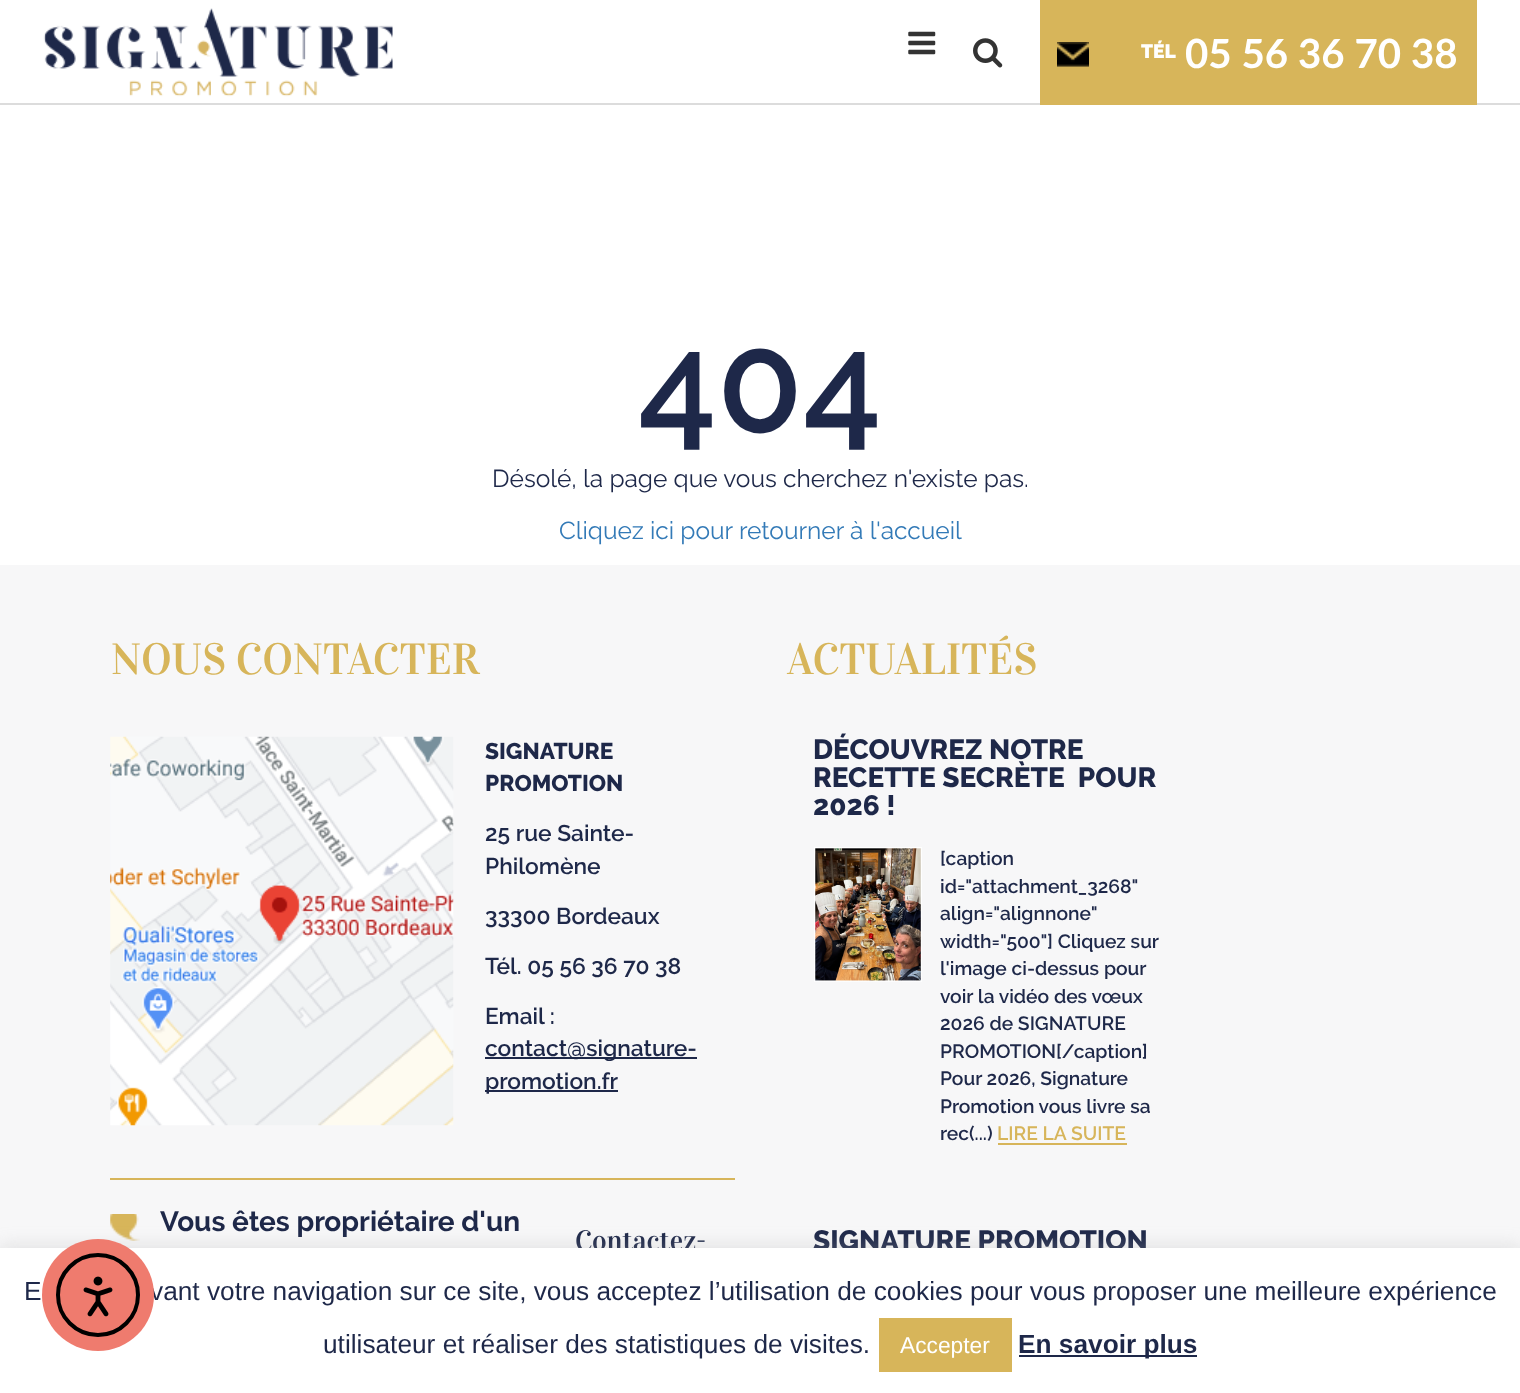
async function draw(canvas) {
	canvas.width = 1520;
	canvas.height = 1393;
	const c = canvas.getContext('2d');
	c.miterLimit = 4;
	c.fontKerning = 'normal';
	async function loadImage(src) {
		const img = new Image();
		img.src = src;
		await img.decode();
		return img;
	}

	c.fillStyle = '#fff';
	c.fillRect(0, 0, 1520, 1393);
	c.fillStyle = '#dcdcdc';
	c.fillRect(0, 103, 1520, 2);
	c.drawImage(await loadImage('img1.png'), 43, 8, 350, 89);
	c.drawImage(await loadImage('img2.png'), 908, 31, 28, 24);
	c.drawImage(await loadImage('img3.png'), 973, 38, 30, 30);
	c.fillStyle = '#d7b55a';
	c.fillRect(1040, 0, 437, 105);
	c.drawImage(await loadImage('img4.png'), 1057, 42, 32, 25);
	c.font = '900 19.25px Raleway';
	c.fillStyle = '#fff';
	c.fillText('TÉL', 1141, 58);
	c.font = 'bold 40.25px Lato';
	c.fillText('05 56 36 70 38', 1185, 68);
	c.font = '600 140px Raleway';
	c.fillStyle = '#1e2849';
	c.fillText('404', 638, 432);
	c.font = '24.5px Raleway';
	c.fillText('Désolé, la page que vous cherchez n\'existe pas.', 492, 487);
	c.fillStyle = '#337ab7';
	c.fillText('Cliquez ici pour retourner à l\'accueil', 559, 539);
	c.fillStyle = '#f7f7f8';
	c.fillRect(0, 565, 1520, 683);
	c.font = '43.75px Vidaloka';
	c.fillStyle = '#d7b55a';
	c.fillText('NOUS CONTACTER', 111, 674);
	c.drawImage(await loadImage('img5.png'), 110, 736, 344, 390);
	c.font = '800 22.75px Raleway';
	c.fillStyle = '#1e2849';
	c.fillText('SIGNATURE', 485, 759);
	c.fillText('PROMOTION', 485, 791);
	c.font = '600 22.75px Raleway';
	for (const [text, x, y] of [
		['25 rue Sainte-', 485, 841],
		['Philomène', 485, 874],
		['33300 Bordeaux', 485, 924],
		['Tél. 05 56 36 70 38', 485, 974],
		['Email :', 485, 1024],
	]) {
		c.fillText(text, x, y);
	}
	c.fillRect(485, 1057, 212, 2);
	c.fillText('contact@signature-', 485, 1056);
	c.fillRect(485, 1090, 133, 2);
	c.fillText('promotion.fr', 485, 1089);
	c.fillStyle = '#d7b55a';
	c.fillRect(110, 1178, 625, 2);
	c.drawImage(await loadImage('img6.png'), 110, 1214, 30, 27);
	c.font = 'bold 28px Raleway';
	c.fillStyle = '#1e2849';
	c.fillText('Vous êtes propriétaire d\'un', 160, 1231);
	c.font = '28px Vidaloka';
	c.fillText('Contactez-', 575, 1250);
	c.font = '43.75px Vidaloka';
	c.fillStyle = '#d7b55a';
	c.fillText('ACTUALITÉS', 787, 674);
	c.font = '800 28px Raleway';
	c.fillStyle = '#1e2849';
	for (const [text, x, y] of [
		['DÉCOUVREZ NOTRE', 813, 759],
		['RECETTE SECRÈTE ️ POUR', 813, 787],
		['2026 !', 813, 815],
	]) {
		c.fillText(text, x, y);
	}
	c.drawImage(await loadImage('img7.png'), 814, 847, 108, 135);
	c.font = '600 19.25px Raleway';
	for (const [text, x, y] of [
		['[caption', 940, 865],
		['id="attachment_3268"', 940, 893],
		['align="alignnone"', 940, 920],
		['width="500"] Cliquez sur', 940, 948],
		['l\'image ci-dessus pour', 940, 975],
		['voir la vidéo des vœux', 940, 1003],
		['2026 de SIGNATURE', 940, 1030],
		['PROMOTION[/caption]', 940, 1058],
		['Pour 2026, Signature', 940, 1085],
		['Promotion vous livre sa', 940, 1113],
		['rec(...)', 940, 1140],
	]) {
		c.fillText(text, x, y);
	}
	c.fillStyle = '#d7b55a';
	c.fillText('LIRE LA SUITE', 997, 1140);
	c.fillRect(998, 1143, 129, 2);
	c.font = '800 28px Raleway';
	c.fillStyle = '#1e2849';
	c.fillText('SIGNATURE PROMOTION', 813, 1250);
	c.fillStyle = '#acabab4d';
	c.filter = 'blur(9px)';
	c.beginPath();
	c.rect(0, 1246, 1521, 145);
	c.fill();
	c.filter = 'none';
	c.fillStyle = '#fff';
	c.fillRect(0, 1248, 1520, 145);
	c.font = '26.25px Liberation Sans';
	c.fillStyle = '#1e2849';
	c.fillText('vant votre navigation sur ce site, vous acceptez l’utilisation de cookies pour vous proposer une meilleure expérience', 150, 1300);
	c.fillStyle = '#ef7b6e';
	c.beginPath();
	c.arc(98, 1295, 56, 0, 2 * Math.PI);
	c.fill();
	c.beginPath();
	c.arc(98, 1295, 40, 0, 2 * Math.PI);
	c.strokeStyle = '#000';
	c.lineWidth = 4;
	c.stroke();
	c.drawImage(await loadImage('img8.png'), 83, 1276, 30, 41);
	c.fillStyle = '#1e2849';
	c.fillText('E', 24, 1300);
	c.fillText('utilisateur et réaliser des statistiques de visites.', 323, 1353);
	c.fillStyle = '#d7b55a';
	c.fillRect(879, 1318, 133, 54);
	c.font = '22.75px Liberation Sans';
	c.fillStyle = '#fff';
	c.fillText('Accepter', 900, 1353);
	c.fillStyle = '#1e2849';
	c.fillRect(1019, 1355, 178, 2);
	c.font = 'bold 26.25px Liberation Sans';
	c.fillText('En savoir plus', 1018, 1353);
}

draw(document.querySelector('canvas'));
